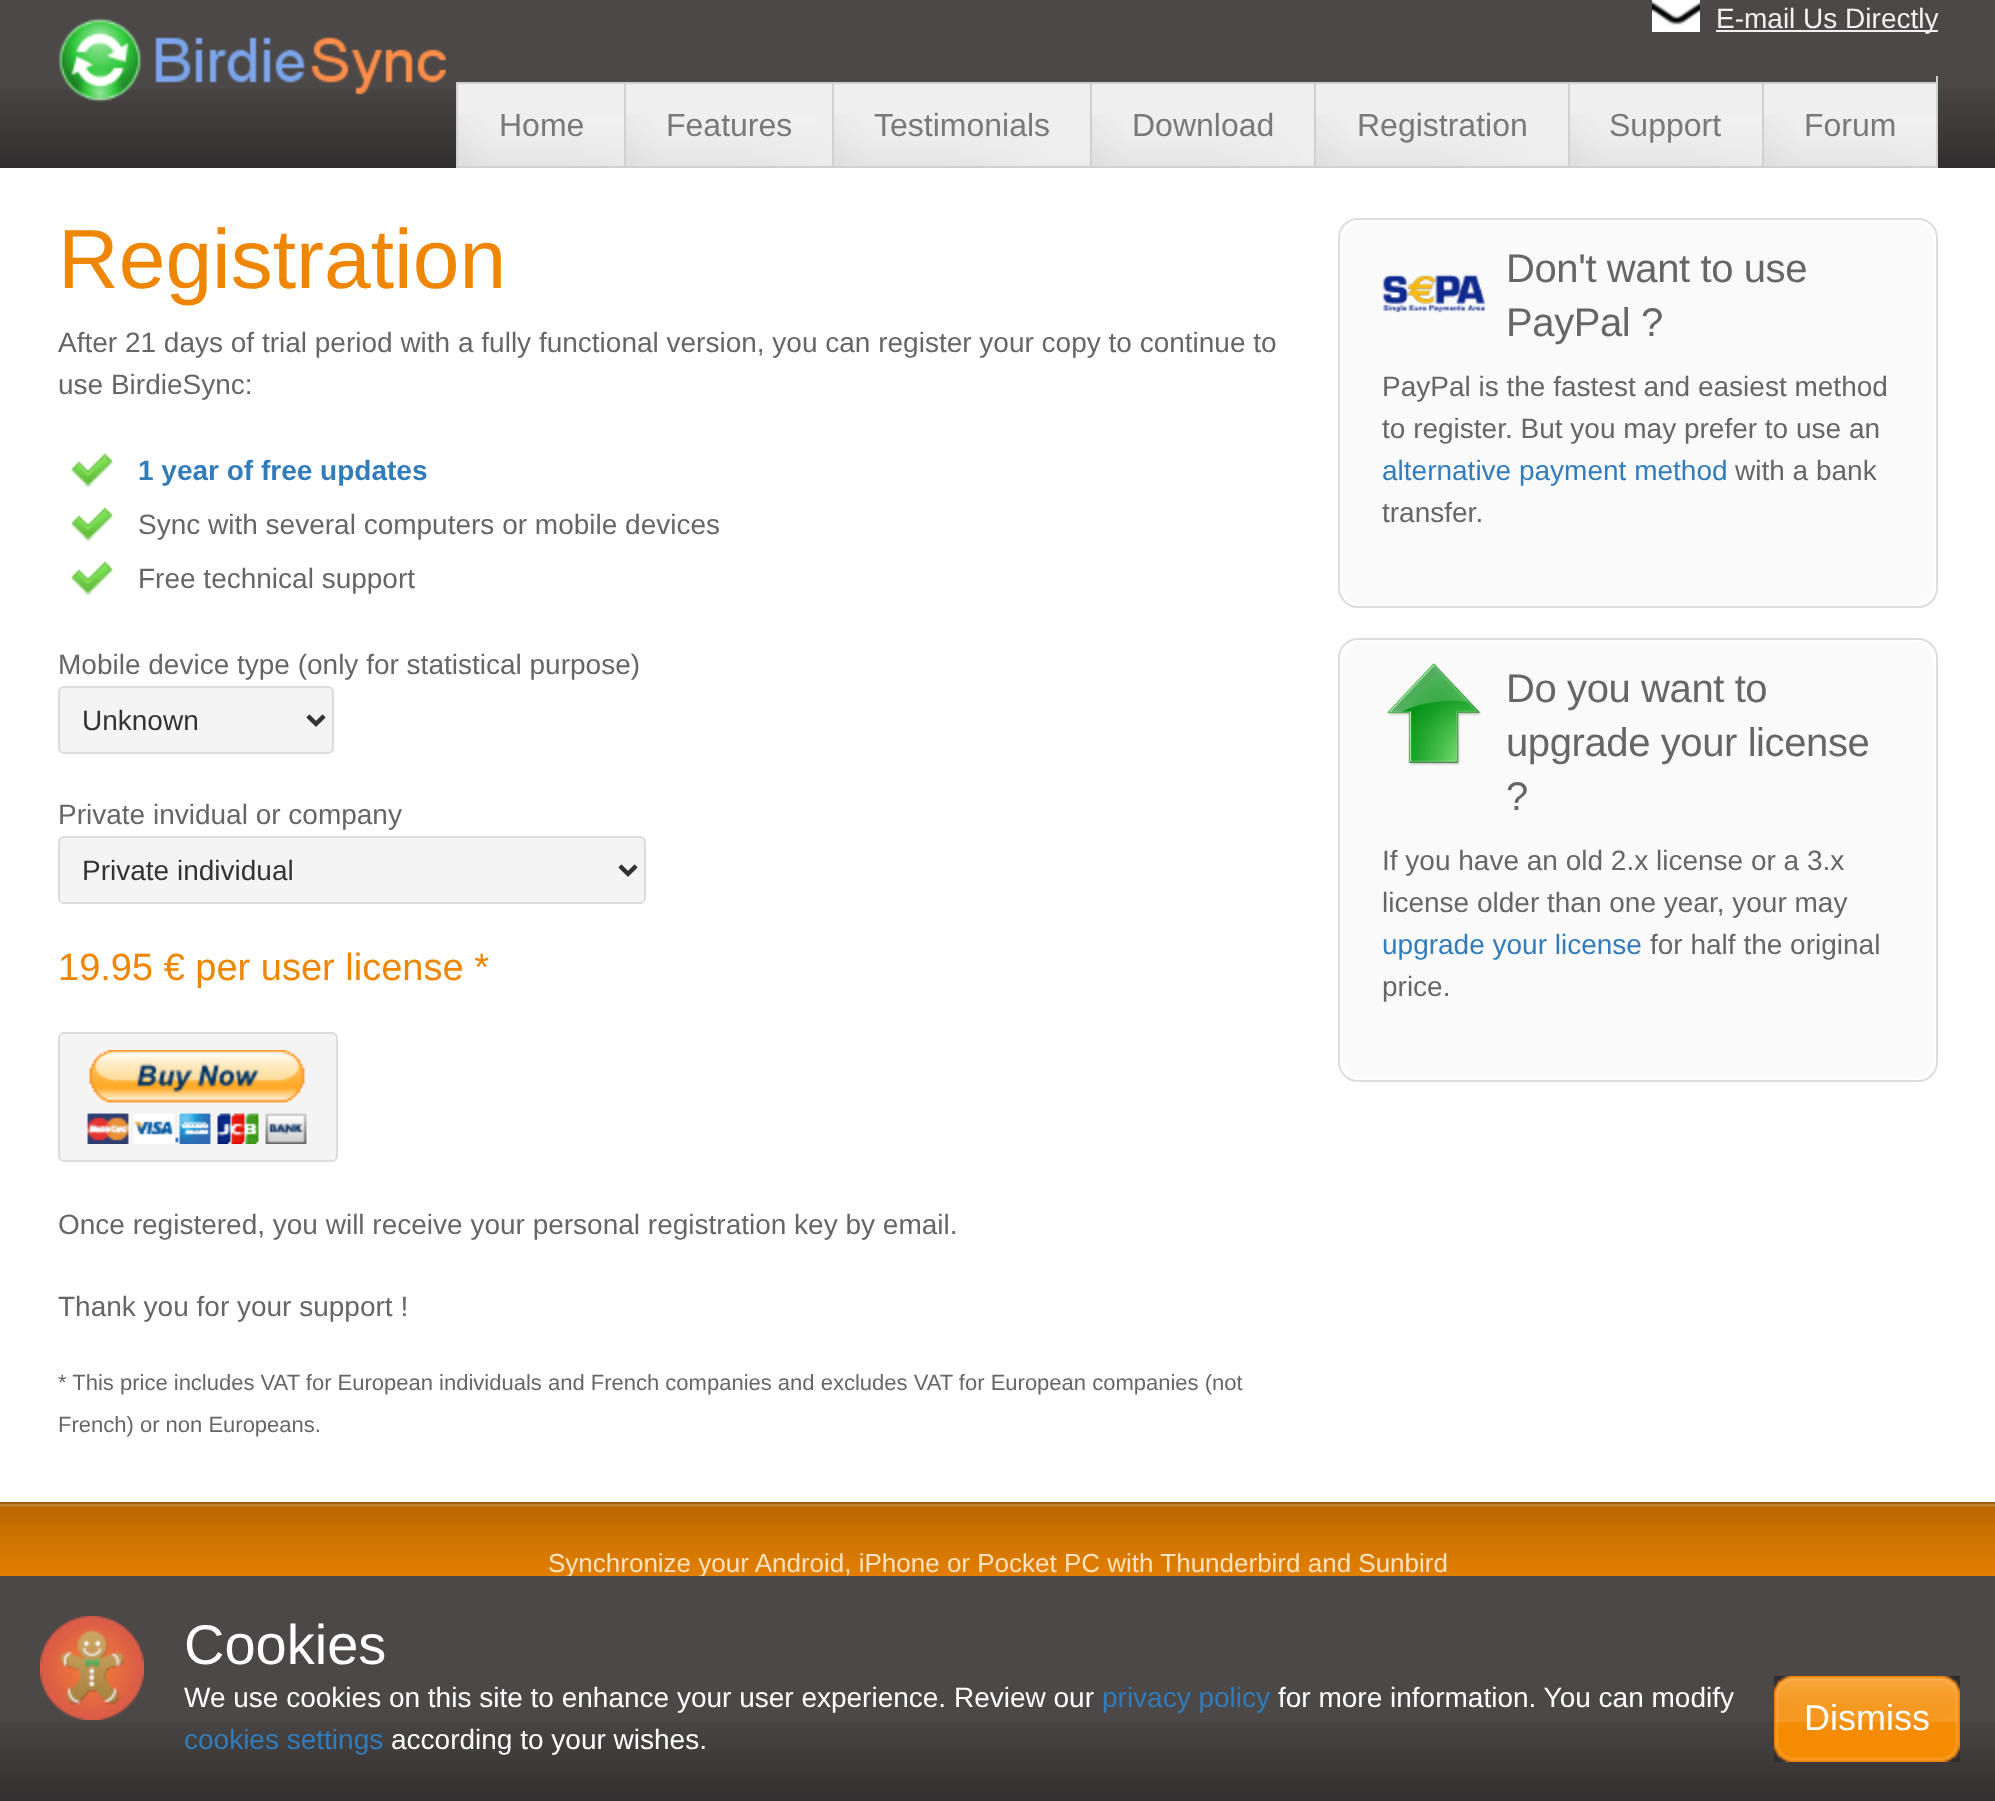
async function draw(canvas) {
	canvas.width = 1995;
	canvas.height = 1801;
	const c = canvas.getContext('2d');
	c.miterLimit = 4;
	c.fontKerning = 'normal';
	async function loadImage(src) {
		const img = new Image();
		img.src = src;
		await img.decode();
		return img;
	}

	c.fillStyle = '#4c4847';
	c.fillRect(0, 0, 1995, 1801);
	c.drawImage(await loadImage('img1.png'), 0, 88, 1995, 80);
	c.drawImage(await loadImage('img2.png'), 58, 18, 388, 84);
	c.drawImage(await loadImage('img3.png'), 1652, 0, 48, 32);
	c.fillStyle = '#f1f1f1';
	c.fillRect(1716, 30, 222, 2);
	c.font = '28px Liberation Sans';
	c.fillText('E-mail Us Directly', 1716, 28);
	c.fillStyle = '#d0d0d0';
	c.fillRect(1936, 76, 2, 92);
	c.fillStyle = '#efefef';
	c.fillRect(458, 84, 166, 31);
	c.drawImage(await loadImage('img4.png'), 458, 115, 166, 51);
	for (const [x, y, w, h, color] of [
		[456, 82, 1480, 2, '#d0d0d0'],
		[456, 166, 1480, 2, '#d0d0d0'],
		[456, 82, 2, 86, '#d0d0d0'],
	]) {
		c.fillStyle = color;
		c.fillRect(x, y, w, h);
	}
	c.font = '32px Liberation Sans';
	c.fillStyle = '#797979';
	c.fillText('Home', 499, 136);
	c.fillStyle = '#efefef';
	c.fillRect(626, 84, 206, 31);
	c.drawImage(await loadImage('img5.png'), 626, 115, 206, 51);
	c.fillStyle = '#d0d0d0';
	c.fillRect(624, 82, 2, 86);
	c.fillStyle = '#797979';
	c.fillText('Features', 666, 136);
	c.fillStyle = '#efefef';
	c.fillRect(834, 84, 256, 31);
	c.drawImage(await loadImage('img6.png'), 834, 115, 256, 51);
	c.fillStyle = '#d0d0d0';
	c.fillRect(832, 82, 2, 86);
	c.fillStyle = '#797979';
	c.fillText('Testimonials', 874, 136);
	c.fillStyle = '#efefef';
	c.fillRect(1092, 84, 222, 31);
	c.drawImage(await loadImage('img7.png'), 1092, 115, 222, 51);
	c.fillStyle = '#d0d0d0';
	c.fillRect(1090, 82, 2, 86);
	c.fillStyle = '#797979';
	c.fillText('Download', 1132, 136);
	c.fillStyle = '#efefef';
	c.fillRect(1316, 84, 252, 31);
	c.drawImage(await loadImage('img8.png'), 1316, 115, 252, 51);
	c.fillStyle = '#d0d0d0';
	c.fillRect(1314, 82, 2, 86);
	c.fillStyle = '#797979';
	c.fillText('Registration', 1357, 136);
	c.fillStyle = '#efefef';
	c.fillRect(1570, 84, 192, 31);
	c.drawImage(await loadImage('img9.png'), 1570, 115, 192, 51);
	c.fillStyle = '#d0d0d0';
	c.fillRect(1568, 82, 2, 86);
	c.fillStyle = '#797979';
	c.fillText('Support', 1609, 136);
	c.fillStyle = '#efefef';
	c.fillRect(1764, 84, 172, 31);
	c.drawImage(await loadImage('img10.png'), 1764, 115, 172, 51);
	c.fillStyle = '#d0d0d0';
	c.fillRect(1762, 82, 2, 86);
	c.fillStyle = '#797979';
	c.fillText('Forum', 1804, 136);
	c.fillStyle = '#fff';
	c.fillRect(0, 168, 1995, 1334);
	c.font = '84px Liberation Sans';
	c.fillStyle = '#ee8600';
	c.fillText('Registration', 58, 288);
	c.font = '28px Liberation Sans';
	c.fillStyle = '#666';
	c.fillText('After 21 days of trial period with a fully functional version, you can register your copy to continue to', 58, 352);
	c.fillText('use BirdieSync:', 58, 394);
	c.drawImage(await loadImage('img11.png'), 71, 453, 42, 35);
	c.font = 'bold 28px Liberation Sans';
	c.fillStyle = '#327cba';
	c.fillText('1 year of free updates', 138, 480);
	c.drawImage(await loadImage('img11.png'), 71, 507, 42, 35);
	c.font = '28px Liberation Sans';
	c.fillStyle = '#666';
	c.fillText('Sync with several computers or mobile devices', 138, 534);
	c.drawImage(await loadImage('img11.png'), 71, 561, 42, 35);
	c.fillText('Free technical support', 138, 588);
	c.fillText('Mobile device type (only for statistical purpose)', 58, 674);
	c.drawImage(await loadImage('img12.png'), 58, 686, 276, 66);
	c.beginPath();
	c.roundRect(59, 687, 274, 66, 5);
	c.strokeStyle = '#ddd';
	c.lineWidth = 2;
	c.stroke();
	c.beginPath();
	c.moveTo(308, 716);
	c.lineTo(316, 724);
	c.lineTo(324, 716);
	c.strokeStyle = '#333';
	c.lineWidth = 4;
	c.stroke();
	c.fillStyle = '#333';
	c.fillText('Unknown', 82, 730);
	c.fillStyle = '#666';
	c.fillText('Private invidual or company', 58, 824);
	c.drawImage(await loadImage('img13.png'), 58, 836, 588, 66);
	c.beginPath();
	c.roundRect(59, 837, 586, 66, 5);
	c.strokeStyle = '#ddd';
	c.lineWidth = 2;
	c.stroke();
	c.beginPath();
	c.moveTo(620, 866);
	c.lineTo(628, 874);
	c.lineTo(636, 866);
	c.strokeStyle = '#333';
	c.lineWidth = 4;
	c.stroke();
	c.fillStyle = '#333';
	c.fillText('Private individual', 82, 880);
	c.font = '38px Liberation Sans';
	c.fillStyle = '#ee8600';
	c.fillText('19.95 € per user license *', 58, 980);
	c.drawImage(await loadImage('img14.png'), 58, 1032, 280, 128);
	c.beginPath();
	c.roundRect(59, 1033, 278, 128, 5);
	c.strokeStyle = '#ddd';
	c.lineWidth = 2;
	c.stroke();
	c.drawImage(await loadImage('img15.png'), 87, 1050, 220, 94);
	c.font = '28px Liberation Sans';
	c.fillStyle = '#666';
	c.fillText('Once registered, you will receive your personal registration key by email.', 58, 1234);
	c.fillText('Thank you for your support !', 58, 1316);
	c.font = '22px Liberation Sans';
	c.fillText('* This price includes VAT for European individuals and French companies and excludes VAT for European companies (not', 58, 1390);
	c.fillText('French) or non Europeans.', 58, 1432);
	c.beginPath();
	c.roundRect(1339, 219, 598, 388, 19);
	c.stroke();
	c.fillStyle = '#fafafa';
	c.beginPath();
	c.roundRect(1342, 222, 592, 382, 20);
	c.fill();
	c.drawImage(await loadImage('img16.png'), 1382, 274, 104, 39);
	c.letterSpacing = '-0.4px';
	c.font = '40px Liberation Sans';
	c.fillStyle = '#666';
	c.fillText('Don\'t want to use', 1506, 282);
	c.fillText('PayPal ?', 1506, 336);
	c.letterSpacing = '0px';
	c.font = '28px Liberation Sans';
	c.fillText('PayPal is the fastest and easiest method', 1382, 396);
	c.fillText('to register. But you may prefer to use an', 1382, 438);
	c.fillStyle = '#327cba';
	c.fillText('alternative payment method', 1382, 480);
	c.fillStyle = '#666';
	c.fillText('with a bank', 1735, 480);
	c.fillText('transfer.', 1382, 522);
	c.beginPath();
	c.roundRect(1339, 639, 598, 442, 19);
	c.stroke();
	c.fillStyle = '#fafafa';
	c.beginPath();
	c.roundRect(1342, 642, 592, 436, 20);
	c.fill();
	c.drawImage(await loadImage('img17.png'), 1387, 663, 94, 103);
	c.letterSpacing = '-0.4px';
	c.font = '40px Liberation Sans';
	c.fillStyle = '#666';
	for (const [text, x, y] of [
		['Do you want to', 1506, 702],
		['upgrade your license', 1506, 756],
		['?', 1506, 810],
	]) {
		c.fillText(text, x, y);
	}
	c.letterSpacing = '0px';
	c.font = '28px Liberation Sans';
	c.fillText('If you have an old 2.x license or a 3.x', 1382, 870);
	c.fillText('license older than one year, your may', 1382, 912);
	c.fillStyle = '#327cba';
	c.fillText('upgrade your license', 1382, 954);
	c.fillStyle = '#666';
	c.fillText('for half the original', 1650, 954);
	c.fillText('price.', 1382, 996);
	c.drawImage(await loadImage('img18.png'), 0, 1502, 1995, 74);
	c.font = '26px Liberation Sans';
	c.fillStyle = '#ffe2bd';
	c.fillText('Synchronize your Android, iPhone or Pocket PC with Thunderbird and Sunbird', 548, 1572);
	c.fillStyle = '#4c4847';
	c.fillRect(566, 1576, 138, 2);
	c.drawImage(await loadImage('img19.png'), 0, 1722, 1995, 79);
	c.drawImage(await loadImage('img20.png'), 40, 1616, 104, 104);
	c.font = '56px Liberation Sans';
	c.fillStyle = '#fff';
	c.fillText('Cookies', 184, 1664);
	c.font = '28px Liberation Sans';
	c.fillText('We use cookies on this site to enhance your user experience. Review our', 184, 1707);
	c.fillStyle = '#327cba';
	c.fillText('privacy policy', 1102, 1707);
	c.fillStyle = '#fff';
	c.fillText('for more information. You can modify', 1278, 1707);
	c.fillStyle = '#327cba';
	c.fillText('cookies settings', 184, 1749);
	c.fillStyle = '#fff';
	c.fillText('according to your wishes.', 391, 1749);
	c.drawImage(await loadImage('img21.png'), 1791, 1676, 169, 86);
	c.drawImage(await loadImage('img22.png'), 1774, 1676, 17, 86);
	c.font = '36px Liberation Sans';
	c.fillText('Dismiss', 1804, 1730);
}

draw(document.querySelector('canvas'));
